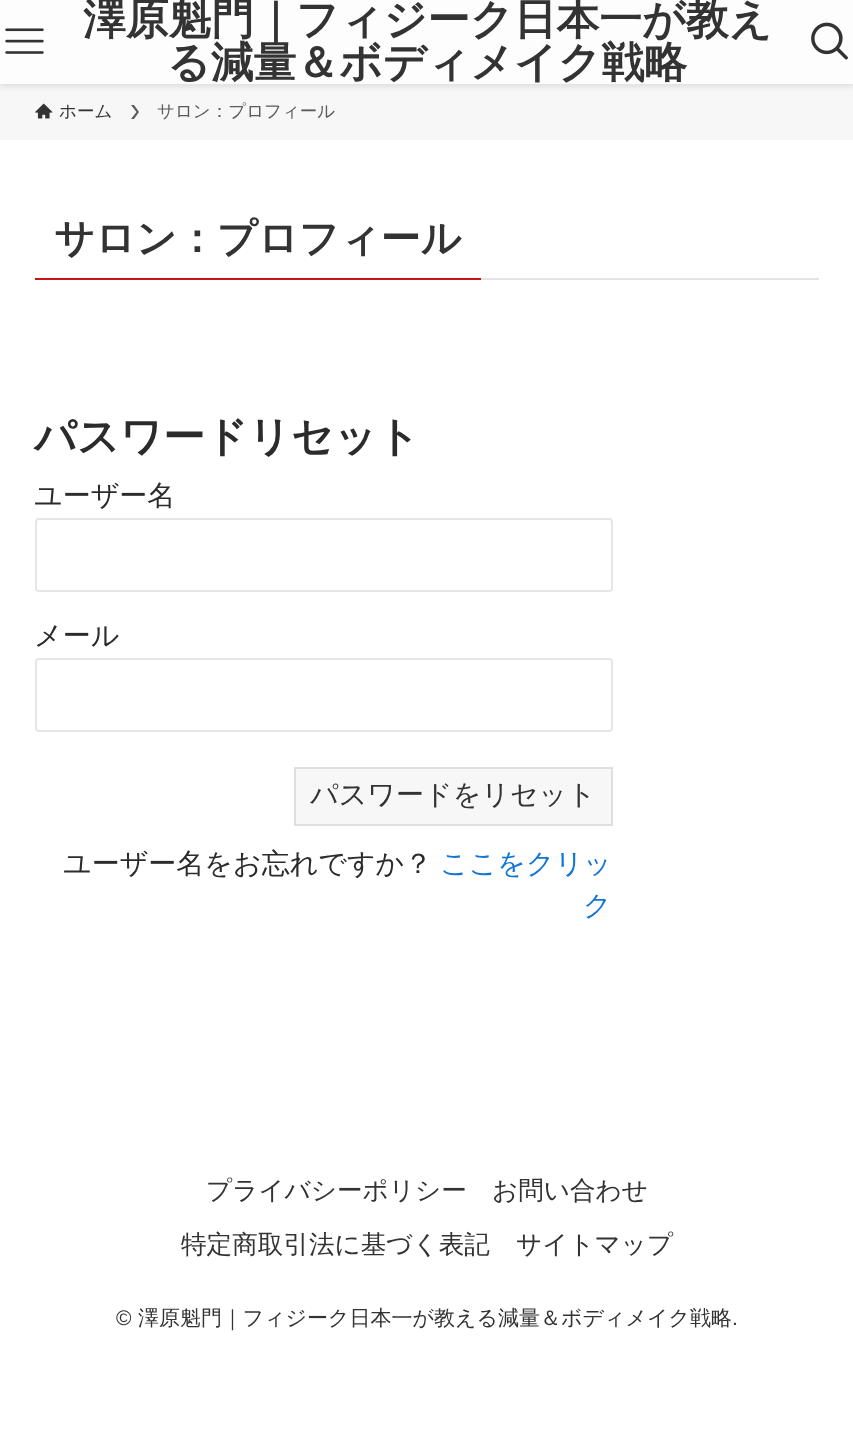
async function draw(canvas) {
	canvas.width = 853;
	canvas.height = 1441;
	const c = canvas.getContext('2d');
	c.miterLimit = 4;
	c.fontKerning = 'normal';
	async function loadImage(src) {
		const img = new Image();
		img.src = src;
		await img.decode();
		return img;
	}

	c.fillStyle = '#fff';
	c.fillRect(0, 0, 853, 1441);
	c.fillStyle = '#f7f7f7';
	c.fillRect(0, 84, 853, 56);
	c.fillStyle = '#0000001f';
	c.filter = 'blur(3.5px)';
	c.beginPath();
	c.rect(0, 2, 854, 84);
	c.fill();
	c.filter = 'none';
	c.fillStyle = '#fdfdfd';
	c.fillRect(0, 0, 853, 84);
	c.drawImage(await loadImage('img1.png'), 5, 28, 39, 26);
	c.font = 'bold 42.75px WenQuanYi Zen Hei';
	c.fillStyle = '#333';
	c.fillText('澤原魁門｜フィジーク日本一が教え', 83, 34);
	c.fillText('る減量＆ボディメイク戦略', 167, 77);
	c.drawImage(await loadImage('img2.png'), 811, 22, 37, 38);
	c.drawImage(await loadImage('img3.png'), 35, 103, 18, 16);
	c.font = '500 17.5px WenQuanYi Zen Hei';
	c.fillText('ホーム', 59, 117);
	c.fillStyle = '#5a5a5a';
	c.beginPath();
	c.moveTo(134, 105);
	c.lineTo(131, 105);
	c.lineTo(136.5, 112);
	c.lineTo(131, 119);
	c.lineTo(134, 119);
	c.lineTo(139, 112);
	c.closePath();
	c.fill();
	c.fillText('サロン：プロフィール', 157, 117);
	c.fillStyle = '#e3e3e3';
	c.fillRect(481, 278, 338, 2);
	c.fillStyle = '#c91414';
	c.fillRect(35, 278, 446, 2);
	c.font = 'bold 40px WenQuanYi Zen Hei';
	c.fillStyle = '#333';
	c.fillText('サロン：プロフィール', 54, 252);
	c.font = 'bold 42px WenQuanYi Zen Hei';
	c.fillStyle = '#2b2b2b';
	c.fillText('パスワードリセット', 34, 451);
	c.font = '500 28px WenQuanYi Zen Hei';
	c.fillText('ユーザー名', 34, 505);
	c.beginPath();
	c.roundRect(36, 519, 576, 72, 3);
	c.strokeStyle = '#e6e6e6';
	c.lineWidth = 2;
	c.stroke();
	c.fillText('メール', 34, 645);
	c.beginPath();
	c.roundRect(36, 659, 576, 72, 3);
	c.stroke();
	c.fillStyle = '#f7f7f7';
	c.beginPath();
	c.rect(295, 768, 317, 57);
	c.fill();
	c.strokeStyle = '#dfdfdf';
	c.stroke();
	c.fillStyle = '#333';
	c.fillText('パスワードをリセット', 310, 804);
	c.fillStyle = '#2b2b2b';
	c.fillText('ユーザー名をお忘れですか？', 63, 873);
	c.fillStyle = '#1176d4';
	c.fillText('ここをクリッ', 440, 873);
	c.fillText('ク', 583, 915);
	c.font = '500 25.6px WenQuanYi Zen Hei';
	c.fillStyle = '#333';
	for (const [text, x, y] of [
		['プライバシーポリシー', 206, 1199],
		['お問い合わせ', 492, 1199],
		['特定商取引法に基づく表記', 181, 1253],
		['サイトマップ', 516, 1253],
	]) {
		c.fillText(text, x, y);
	}
	c.font = '21px Liberation Sans';
	c.fillText('©', 116, 1325);
	c.font = '500 21px WenQuanYi Zen Hei';
	c.fillText('澤原魁門｜フィジーク日本一が教える減量＆ボディメイク戦略', 138, 1325);
	c.font = '21px Liberation Sans';
	c.fillText('.', 732, 1325);
}

draw(document.querySelector('canvas'));
